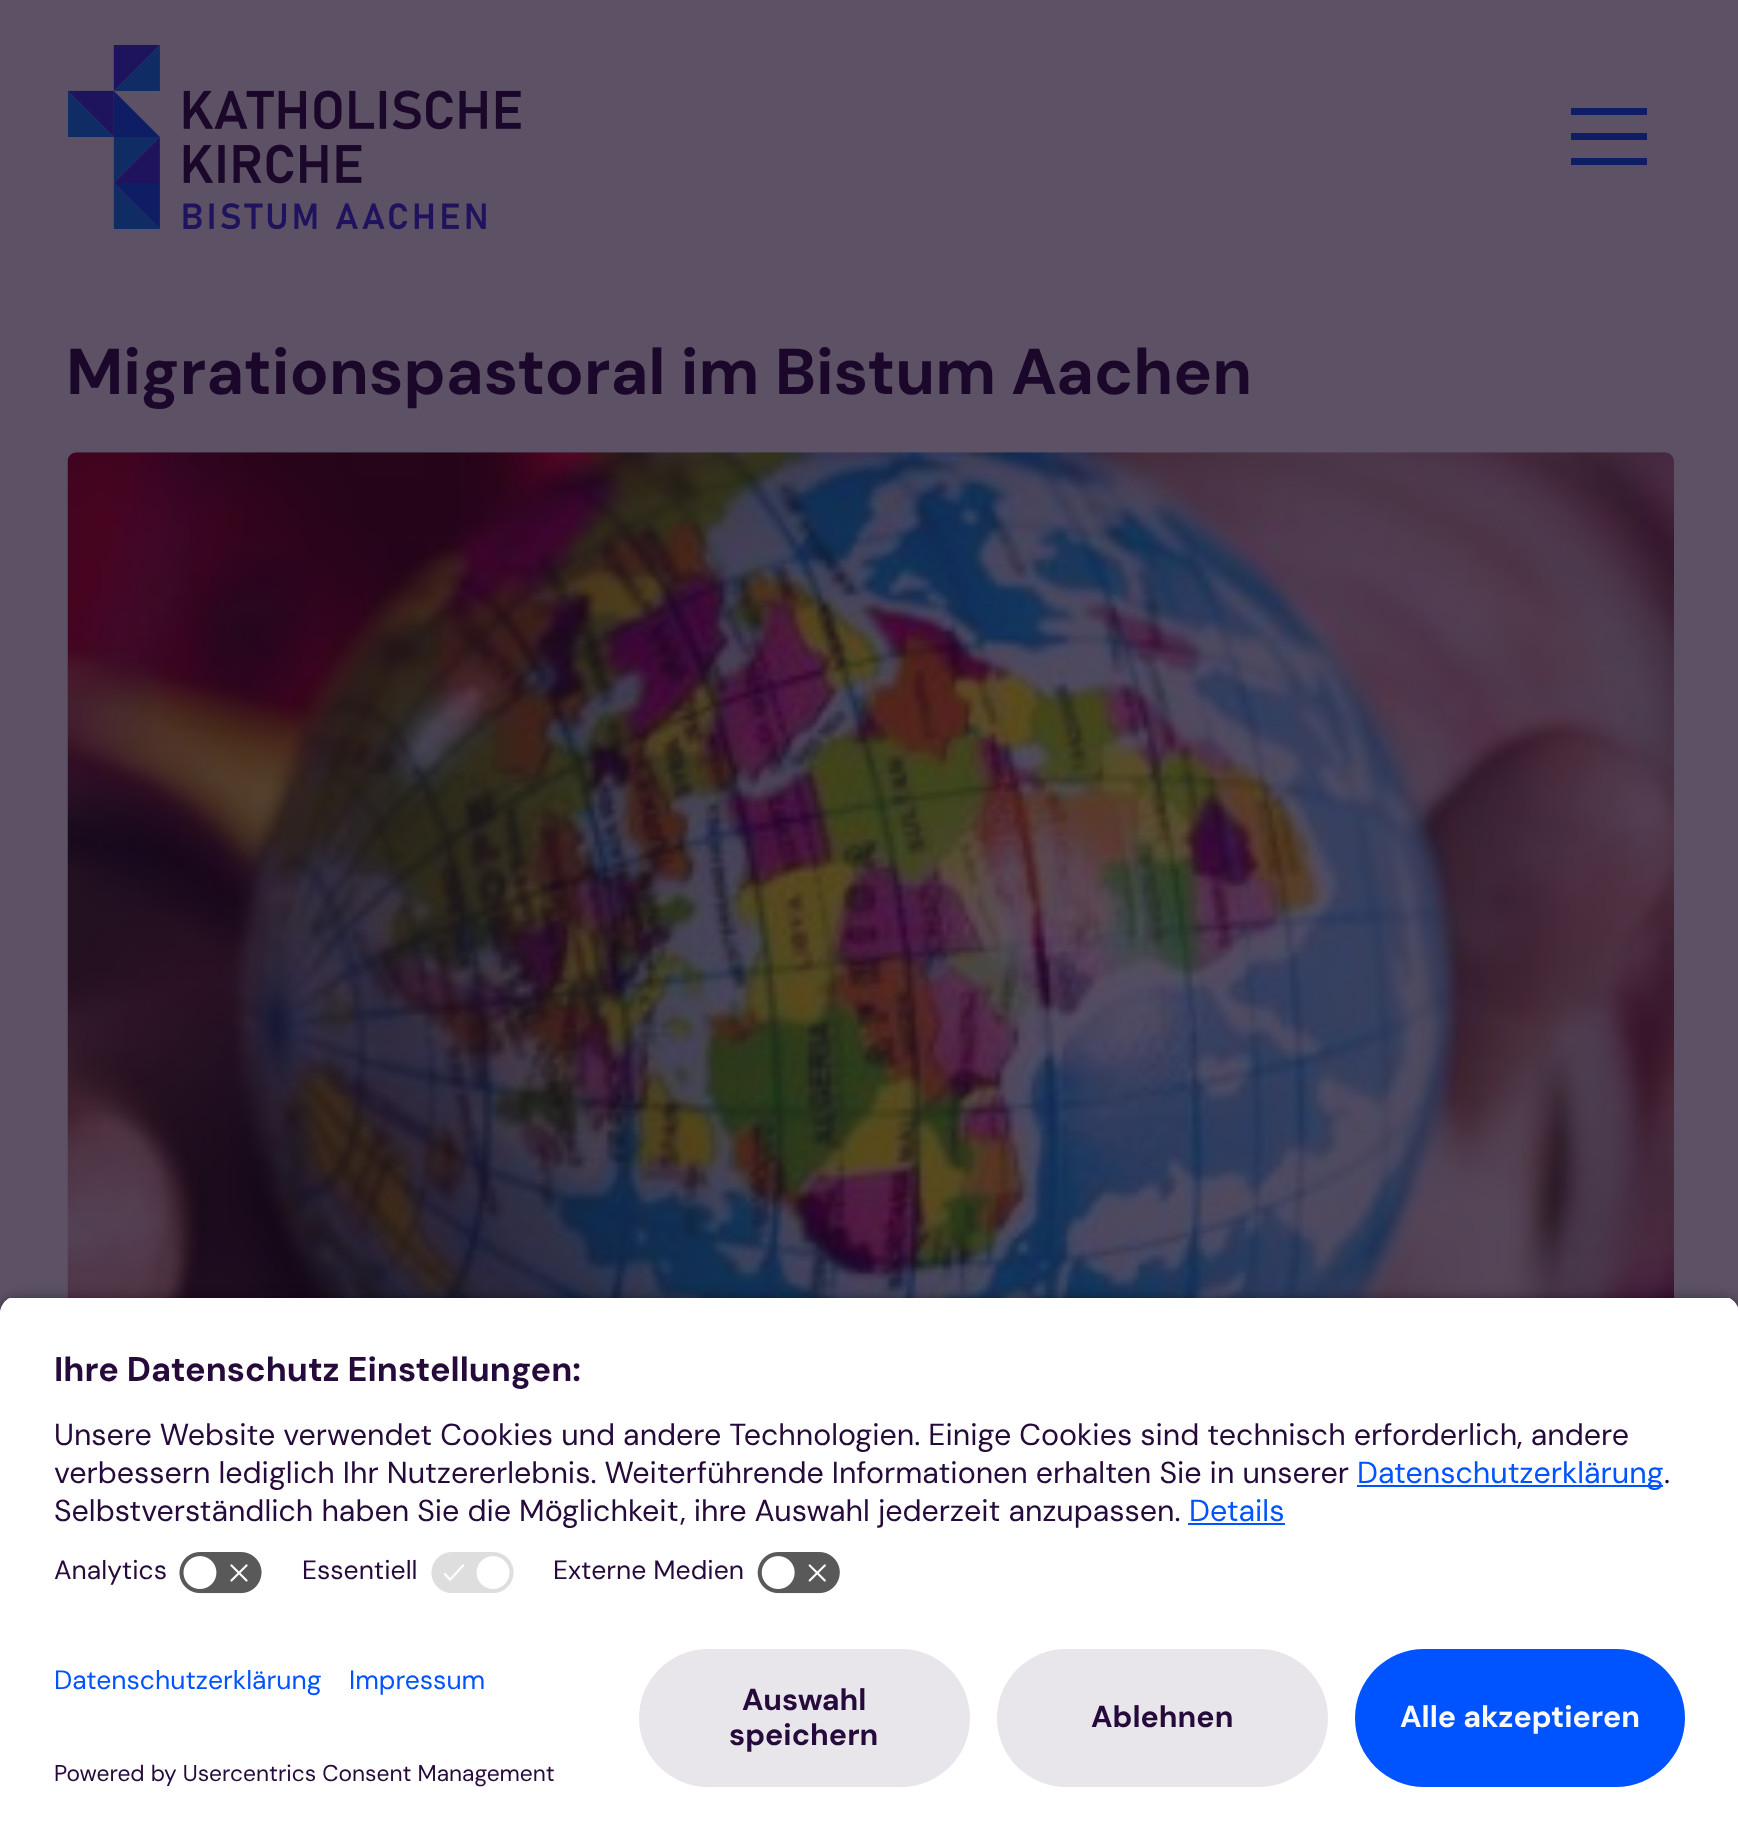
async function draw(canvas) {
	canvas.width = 1738;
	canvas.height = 1840;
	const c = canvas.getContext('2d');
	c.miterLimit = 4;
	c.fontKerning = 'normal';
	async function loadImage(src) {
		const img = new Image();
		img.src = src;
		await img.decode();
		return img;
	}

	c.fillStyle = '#5c5165';
	c.fillRect(0, 0, 1738, 1840);
	c.drawImage(await loadImage('img1.png'), 68, 45, 453, 185);
	for (const [x, y, w, h, color] of [
		[1571, 133, 76, 7, '#0f1d65'],
		[1571, 108, 76, 7, '#0f1d65'],
		[1571, 158, 76, 7, '#0f1d65'],
	]) {
		c.fillStyle = color;
		c.fillRect(x, y, w, h);
	}
	c.font = 'bold 64.75px DM Sans';
	c.fillStyle = '#1b072a';
	c.fillText('Migrationspastoral im Bistum Aachen', 66, 394);
	c.drawImage(await loadImage('img2.png'), 67, 452, 1607, 846);
	c.fillStyle = '#000000cc';
	c.filter = 'blur(8px)';
	c.beginPath();
	c.roundRect(0, 1303, 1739, 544, 18);
	c.fill();
	c.filter = 'none';
	c.save();
	c.beginPath();
	c.moveTo(18, 1296);
	c.lineTo(1721, 1296);
	c.bezierCurveTo(1731, 1296, 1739, 1304, 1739, 1314);
	c.lineTo(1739, 1631);
	c.lineTo(0, 1631);
	c.lineTo(0, 1314);
	c.bezierCurveTo(0, 1304, 8, 1296, 18, 1296);
	c.closePath();
	c.clip();
	c.fillStyle = '#fff';
	c.fillRect(0, 1298, 1738, 333);
	c.fillRect(0, 1298, 1738, 243);
	c.restore();
	c.font = 'bold 34.2px DM Sans';
	c.fillStyle = '#260a3b';
	c.fillText('Ihre Datenschutz Einstellungen:', 54, 1381);
	c.font = '30.38px DM Sans';
	c.fillText('Unsere Website verwendet Cookies und andere Technologien. Einige Cookies sind technisch erforderlich, andere', 54, 1445);
	c.fillText('verbessern lediglich Ihr Nutzererlebnis. Weiterführende Informationen erhalten Sie in unserer', 54, 1483);
	c.fillStyle = '#0054ff';
	c.fillRect(1357, 1485, 306, 2);
	c.fillText('Datenschutzerklärung', 1357, 1483);
	c.fillStyle = '#260a3b';
	c.fillText('.', 1664, 1483);
	c.fillText('Selbstverständlich haben Sie die Möglichkeit, ihre Auswahl jederzeit anzupassen.', 54, 1521);
	c.fillStyle = '#0054ff';
	c.fillText('Details', 1189, 1521);
	c.fillRect(1188, 1523, 97, 2);
	c.font = '26.5px DM Sans';
	c.fillStyle = '#260a3b';
	c.fillText('Analytics', 54, 1579);
	c.drawImage(await loadImage('img3.png'), 179, 1552, 83, 42);
	c.fillText('Essentiell', 302, 1579);
	c.drawImage(await loadImage('img4.png'), 431, 1552, 83, 41);
	c.fillText('Externe Medien', 553, 1579);
	c.drawImage(await loadImage('img5.png'), 757, 1552, 83, 42);
	c.fillStyle = '#fff';
	c.fillRect(0, 1631, 1738, 209);
	c.fillStyle = '#0054ff';
	c.fillText('Datenschutzerklärung', 54, 1689);
	c.fillText('Impressum', 349, 1689);
	c.font = '22.75px DM Sans';
	c.fillStyle = '#260a3b';
	c.fillText('Powered by Usercentrics Consent Management', 54, 1781);
	c.fillStyle = '#e8e6ea';
	c.beginPath();
	c.roundRect(639, 1649, 331, 138, 69);
	c.fill();
	c.font = 'bold 30.38px DM Sans';
	c.fillStyle = '#260a3b';
	c.fillText('Auswahl', 742, 1710);
	c.fillText('speichern', 729, 1745);
	c.fillStyle = '#e8e6ea';
	c.beginPath();
	c.roundRect(997, 1649, 331, 138, 69);
	c.fill();
	c.fillStyle = '#260a3b';
	c.fillText('Ablehnen', 1091, 1727);
	c.fillStyle = '#0054ff';
	c.beginPath();
	c.roundRect(1355, 1649, 330, 138, 69);
	c.fill();
	c.fillStyle = '#fafafa';
	c.fillText('Alle akzeptieren', 1400, 1727);
}

draw(document.querySelector('canvas'));
